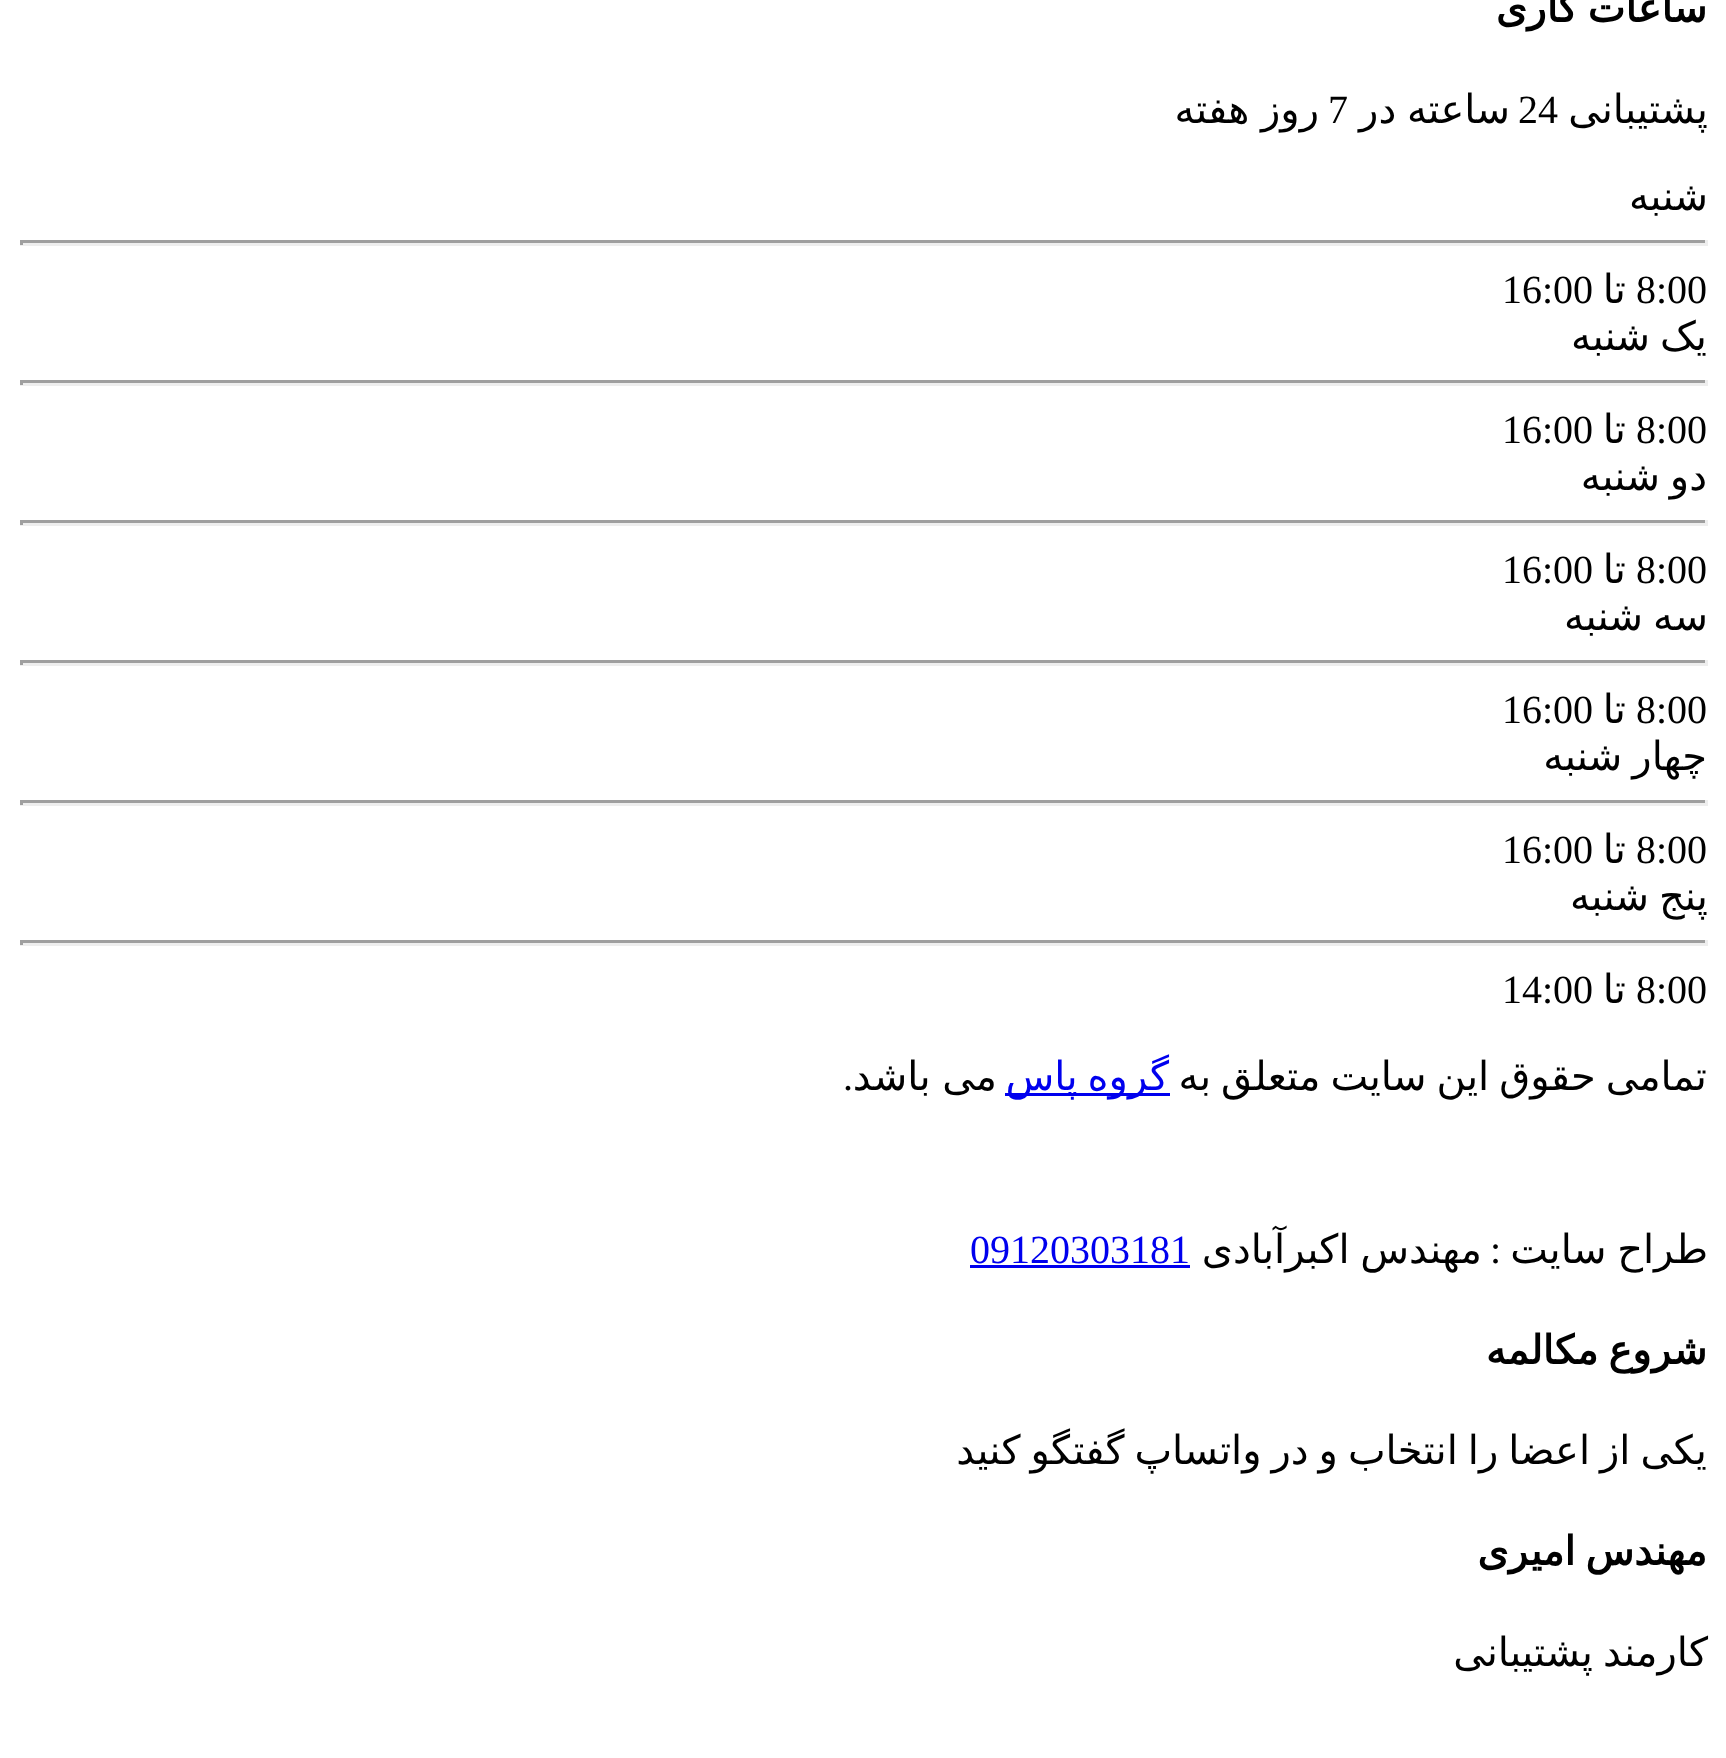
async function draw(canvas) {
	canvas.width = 1726;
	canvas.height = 1758;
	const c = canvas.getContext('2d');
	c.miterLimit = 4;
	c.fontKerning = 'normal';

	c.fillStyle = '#fff';
	c.fillRect(0, 0, 1726, 1758);
	c.wordSpacing = '-2.75px';
	c.direction = 'rtl';
	c.font = 'bold 40px DejaVu Sans';
	c.fillStyle = '#000';
	c.fillText('ساعات کاری', 1707, 22);
	c.wordSpacing = '0px';
	c.font = '40px DejaVu Sans';
	c.fillText('پشتیبانی', 1708, 123);
	c.direction = 'ltr';
	c.font = '40px Liberation Serif';
	c.fillText('24', 1518, 123);
	c.wordSpacing = '-2px';
	c.direction = 'rtl';
	c.font = '40px DejaVu Sans';
	c.fillText('ساعته در', 1510, 123);
	c.wordSpacing = '0px';
	c.direction = 'ltr';
	c.font = '40px Liberation Serif';
	c.fillText('7', 1328, 123);
	c.wordSpacing = '-1px';
	c.direction = 'rtl';
	c.font = '40px DejaVu Sans';
	c.fillText('روز هفته', 1319, 123);
	c.wordSpacing = '0px';
	c.fillText('شنبه', 1708, 210);
	for (const [x, y, w, h, color] of [
		[20, 240, 1688, 3, '#9f9f9f'],
		[1705, 240, 3, 5, '#eee'],
		[20, 243, 1688, 3, '#eee'],
		[20, 240, 3, 5, '#9f9f9f'],
	]) {
		c.fillStyle = color;
		c.fillRect(x, y, w, h);
	}
	c.direction = 'ltr';
	c.font = '40px Liberation Serif';
	c.fillStyle = '#000';
	c.fillText('8:00', 1636, 303);
	c.direction = 'rtl';
	c.font = '40px DejaVu Sans';
	c.fillText('تا', 1626, 303);
	c.direction = 'ltr';
	c.font = '40px Liberation Serif';
	c.fillText('16:00', 1502, 303);
	c.wordSpacing = '-2.75px';
	c.direction = 'rtl';
	c.font = '40px DejaVu Sans';
	c.fillText('یک شنبه', 1707, 350);
	for (const [x, y, w, h, color] of [
		[20, 380, 1688, 3, '#9f9f9f'],
		[1705, 380, 3, 5, '#eee'],
		[20, 383, 1688, 3, '#eee'],
		[20, 380, 3, 5, '#9f9f9f'],
	]) {
		c.fillStyle = color;
		c.fillRect(x, y, w, h);
	}
	c.wordSpacing = '0px';
	c.direction = 'ltr';
	c.font = '40px Liberation Serif';
	c.fillStyle = '#000';
	c.fillText('8:00', 1636, 443);
	c.direction = 'rtl';
	c.font = '40px DejaVu Sans';
	c.fillText('تا', 1626, 443);
	c.direction = 'ltr';
	c.font = '40px Liberation Serif';
	c.fillText('16:00', 1502, 443);
	c.wordSpacing = '-2.75px';
	c.direction = 'rtl';
	c.font = '40px DejaVu Sans';
	c.fillText('دو شنبه', 1707, 490);
	for (const [x, y, w, h, color] of [
		[20, 520, 1688, 3, '#9f9f9f'],
		[1705, 520, 3, 5, '#eee'],
		[20, 523, 1688, 3, '#eee'],
		[20, 520, 3, 5, '#9f9f9f'],
	]) {
		c.fillStyle = color;
		c.fillRect(x, y, w, h);
	}
	c.wordSpacing = '0px';
	c.direction = 'ltr';
	c.font = '40px Liberation Serif';
	c.fillStyle = '#000';
	c.fillText('8:00', 1636, 583);
	c.direction = 'rtl';
	c.font = '40px DejaVu Sans';
	c.fillText('تا', 1626, 583);
	c.direction = 'ltr';
	c.font = '40px Liberation Serif';
	c.fillText('16:00', 1502, 583);
	c.wordSpacing = '-2.75px';
	c.direction = 'rtl';
	c.font = '40px DejaVu Sans';
	c.fillText('سه شنبه', 1708, 630);
	for (const [x, y, w, h, color] of [
		[20, 660, 1688, 3, '#9f9f9f'],
		[1705, 660, 3, 5, '#eee'],
		[20, 663, 1688, 3, '#eee'],
		[20, 660, 3, 5, '#9f9f9f'],
	]) {
		c.fillStyle = color;
		c.fillRect(x, y, w, h);
	}
	c.wordSpacing = '0px';
	c.direction = 'ltr';
	c.font = '40px Liberation Serif';
	c.fillStyle = '#000';
	c.fillText('8:00', 1636, 723);
	c.direction = 'rtl';
	c.font = '40px DejaVu Sans';
	c.fillText('تا', 1626, 723);
	c.direction = 'ltr';
	c.font = '40px Liberation Serif';
	c.fillText('16:00', 1502, 723);
	c.wordSpacing = '-2.75px';
	c.direction = 'rtl';
	c.font = '40px DejaVu Sans';
	c.fillText('چهار شنبه', 1707, 770);
	for (const [x, y, w, h, color] of [
		[20, 800, 1688, 3, '#9f9f9f'],
		[1705, 800, 3, 5, '#eee'],
		[20, 803, 1688, 3, '#eee'],
		[20, 800, 3, 5, '#9f9f9f'],
	]) {
		c.fillStyle = color;
		c.fillRect(x, y, w, h);
	}
	c.wordSpacing = '0px';
	c.direction = 'ltr';
	c.font = '40px Liberation Serif';
	c.fillStyle = '#000';
	c.fillText('8:00', 1636, 863);
	c.direction = 'rtl';
	c.font = '40px DejaVu Sans';
	c.fillText('تا', 1626, 863);
	c.direction = 'ltr';
	c.font = '40px Liberation Serif';
	c.fillText('16:00', 1502, 863);
	c.wordSpacing = '-2.75px';
	c.direction = 'rtl';
	c.font = '40px DejaVu Sans';
	c.fillText('پنج شنبه', 1708, 910);
	for (const [x, y, w, h, color] of [
		[20, 940, 1688, 3, '#9f9f9f'],
		[1705, 940, 3, 5, '#eee'],
		[20, 943, 1688, 3, '#eee'],
		[20, 940, 3, 5, '#9f9f9f'],
	]) {
		c.fillStyle = color;
		c.fillRect(x, y, w, h);
	}
	c.wordSpacing = '0px';
	c.direction = 'ltr';
	c.font = '40px Liberation Serif';
	c.fillStyle = '#000';
	c.fillText('8:00', 1636, 1003);
	c.direction = 'rtl';
	c.font = '40px DejaVu Sans';
	c.fillText('تا', 1626, 1003);
	c.direction = 'ltr';
	c.font = '40px Liberation Serif';
	c.fillText('14:00', 1502, 1003);
	c.wordSpacing = '-2.75px';
	c.direction = 'rtl';
	c.font = '40px DejaVu Sans';
	c.fillText('تمامی حقوق این سایت متعلق به', 1707, 1090);
	c.fillStyle = '#00e';
	c.fillRect(1005, 1093, 165, 3);
	c.fillText('گروه پاس', 1169, 1090);
	c.wordSpacing = '-1px';
	c.fillStyle = '#000';
	c.fillText('می باشد', 997, 1090);
	c.wordSpacing = '0px';
	c.font = '40px Liberation Serif';
	c.fillText('.', 853, 1090);
	c.wordSpacing = '-2px';
	c.font = '40px DejaVu Sans';
	c.fillText('طراح سایت', 1708, 1263);
	c.wordSpacing = '0px';
	c.font = '40px Liberation Serif';
	c.fillText(':', 1501, 1263);
	c.wordSpacing = '-2px';
	c.font = '40px DejaVu Sans';
	c.fillText('مهندس اکبرآبادی', 1482, 1263);
	c.wordSpacing = '0px';
	c.direction = 'ltr';
	c.font = '40px Liberation Serif';
	c.fillStyle = '#00e';
	c.fillText('09120303181', 970, 1263);
	c.fillRect(970, 1265, 220, 3);
	c.wordSpacing = '-2.75px';
	c.direction = 'rtl';
	c.font = 'bold 40px DejaVu Sans';
	c.fillStyle = '#000';
	c.fillText('شروع مکالمه', 1707, 1364);
	c.font = '40px DejaVu Sans';
	c.fillText('یکی از اعضا را انتخاب و در واتساپ گفتگو کنید', 1707, 1464);
	c.font = 'bold 40px DejaVu Sans';
	c.fillText('مهندس امیری', 1707, 1565);
	c.font = '40px DejaVu Sans';
	c.fillText('کارمند پشتیبانی', 1708, 1666);
}

draw(document.querySelector('canvas'));
